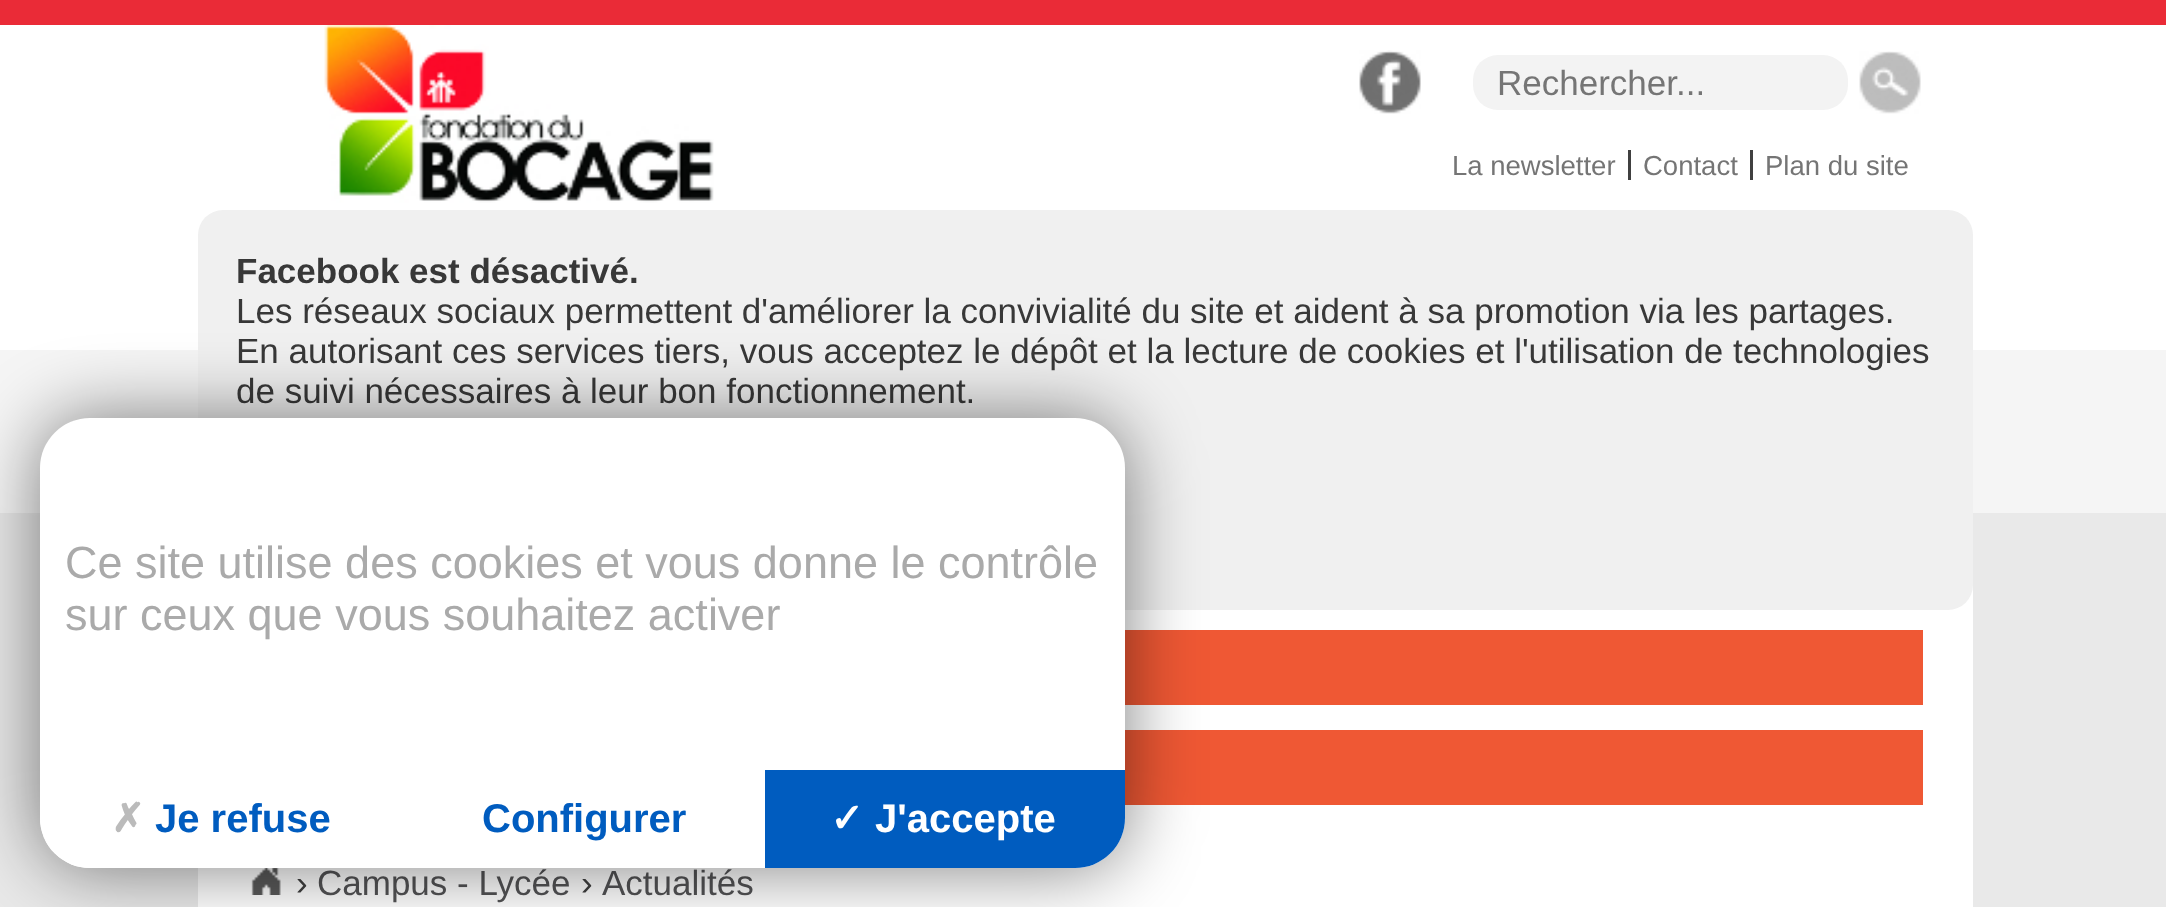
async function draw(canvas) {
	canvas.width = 2166;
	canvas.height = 907;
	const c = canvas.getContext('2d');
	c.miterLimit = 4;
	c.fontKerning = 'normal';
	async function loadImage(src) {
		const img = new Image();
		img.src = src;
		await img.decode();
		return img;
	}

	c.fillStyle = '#fff';
	c.fillRect(0, 0, 2166, 907);
	for (const [x, y, w, h, color] of [
		[0, 350, 2166, 163, '#f5f5f5'],
		[0, 513, 2166, 394, '#e9e9e9'],
		[0, 0, 2166, 25, '#ea2b37'],
		[198, 350, 1775, 557, '#fff'],
	]) {
		c.fillStyle = color;
		c.fillRect(x, y, w, h);
	}
	c.drawImage(await loadImage('img1.png'), 324, 25, 390, 178);
	c.drawImage(await loadImage('img2.png'), 1359, 50, 62, 64);
	c.fillStyle = '#f3f3f3';
	c.beginPath();
	c.roundRect(1473, 55, 375, 55, 25);
	c.fill();
	c.font = '35px Liberation Sans';
	c.fillStyle = '#757575';
	c.fillText('Rechercher...', 1497, 95);
	c.drawImage(await loadImage('img3.png'), 1859, 51, 62, 63);
	c.font = '27.5px Liberation Sans';
	c.fillText('La newsletter', 1452, 175);
	c.fillStyle = '#404040';
	c.fillRect(1628, 150, 3, 30);
	c.fillStyle = '#757575';
	c.fillText('Contact', 1643, 175);
	c.fillStyle = '#404040';
	c.fillRect(1750, 150, 3, 30);
	c.fillStyle = '#757575';
	c.fillText('Plan du site', 1765, 175);
	c.fillStyle = '#f0f0f0';
	c.beginPath();
	c.roundRect(198, 210, 1775, 400, 25);
	c.fill();
	c.font = 'bold 35px Liberation Sans';
	c.fillStyle = '#383838';
	c.fillText('Facebook est désactivé.', 236, 283);
	c.font = '35px Liberation Sans';
	for (const [text, x, y] of [
		['Les réseaux sociaux permettent d\'améliorer la convivialité du site et aident à sa promotion via les partages.', 236, 323],
		['En autorisant ces services tiers, vous acceptez le dépôt et la lecture de cookies et l\'utilisation de technologies', 236, 363],
		['de suivi nécessaires à leur bon fonctionnement.', 236, 403],
	]) {
		c.fillText(text, x, y);
	}
	c.fillStyle = '#ef5834';
	c.fillRect(1125, 630, 798, 75);
	c.fillRect(1125, 730, 798, 75);
	c.drawImage(await loadImage('img4.png'), 251, 868, 30, 27);
	c.fillStyle = '#404040';
	c.fillText('›', 296, 895);
	c.fillStyle = '#545456';
	c.fillText('Campus - Lycée', 317, 895);
	c.fillStyle = '#404040';
	c.fillText('›', 581, 895);
	c.fillStyle = '#545456';
	c.fillText('Actualités', 602, 895);
	c.fillStyle = '#00000080';
	c.filter = 'blur(37.5px)';
	c.beginPath();
	c.roundRect(40, 418, 1085, 450, 50);
	c.fill();
	c.filter = 'none';
	c.fillStyle = '#fff';
	c.beginPath();
	c.roundRect(40, 418, 1085, 450, 50);
	c.fill();
	c.font = '45px Liberation Sans';
	c.fillStyle = '#aaa';
	c.fillText('Ce site utilise des cookies et vous donne le contrôle', 65, 578);
	c.fillText('sur ceux que vous souhaitez activer', 65, 630);
	c.fillStyle = '#fff';
	c.beginPath();
	c.roundRect(40, 770, 360, 98, [0, 0, 0, 50]);
	c.fill();
	c.font = 'bold 40px DejaVu Sans';
	c.fillStyle = '#bbb';
	c.fillText('✗', 111, 832);
	c.font = 'bold 40px Liberation Sans';
	c.fillStyle = '#005cbf';
	c.fillText('Je refuse', 155, 832);
	c.beginPath();
	c.roundRect(763, 770, 362, 98, [0, 0, 50, 0]);
	c.fill();
	c.fillStyle = '#fff';
	c.fillRect(763, 770, 2, 98);
	c.fillStyle = '#005cbf';
	c.fillText('Configurer', 482, 832);
	c.font = 'bold 40px DejaVu Sans';
	c.fillStyle = '#fff';
	c.fillText('✓', 830, 832);
	c.font = 'bold 40px Liberation Sans';
	c.fillText('J\'accepte', 875, 832);
}

draw(document.querySelector('canvas'));
